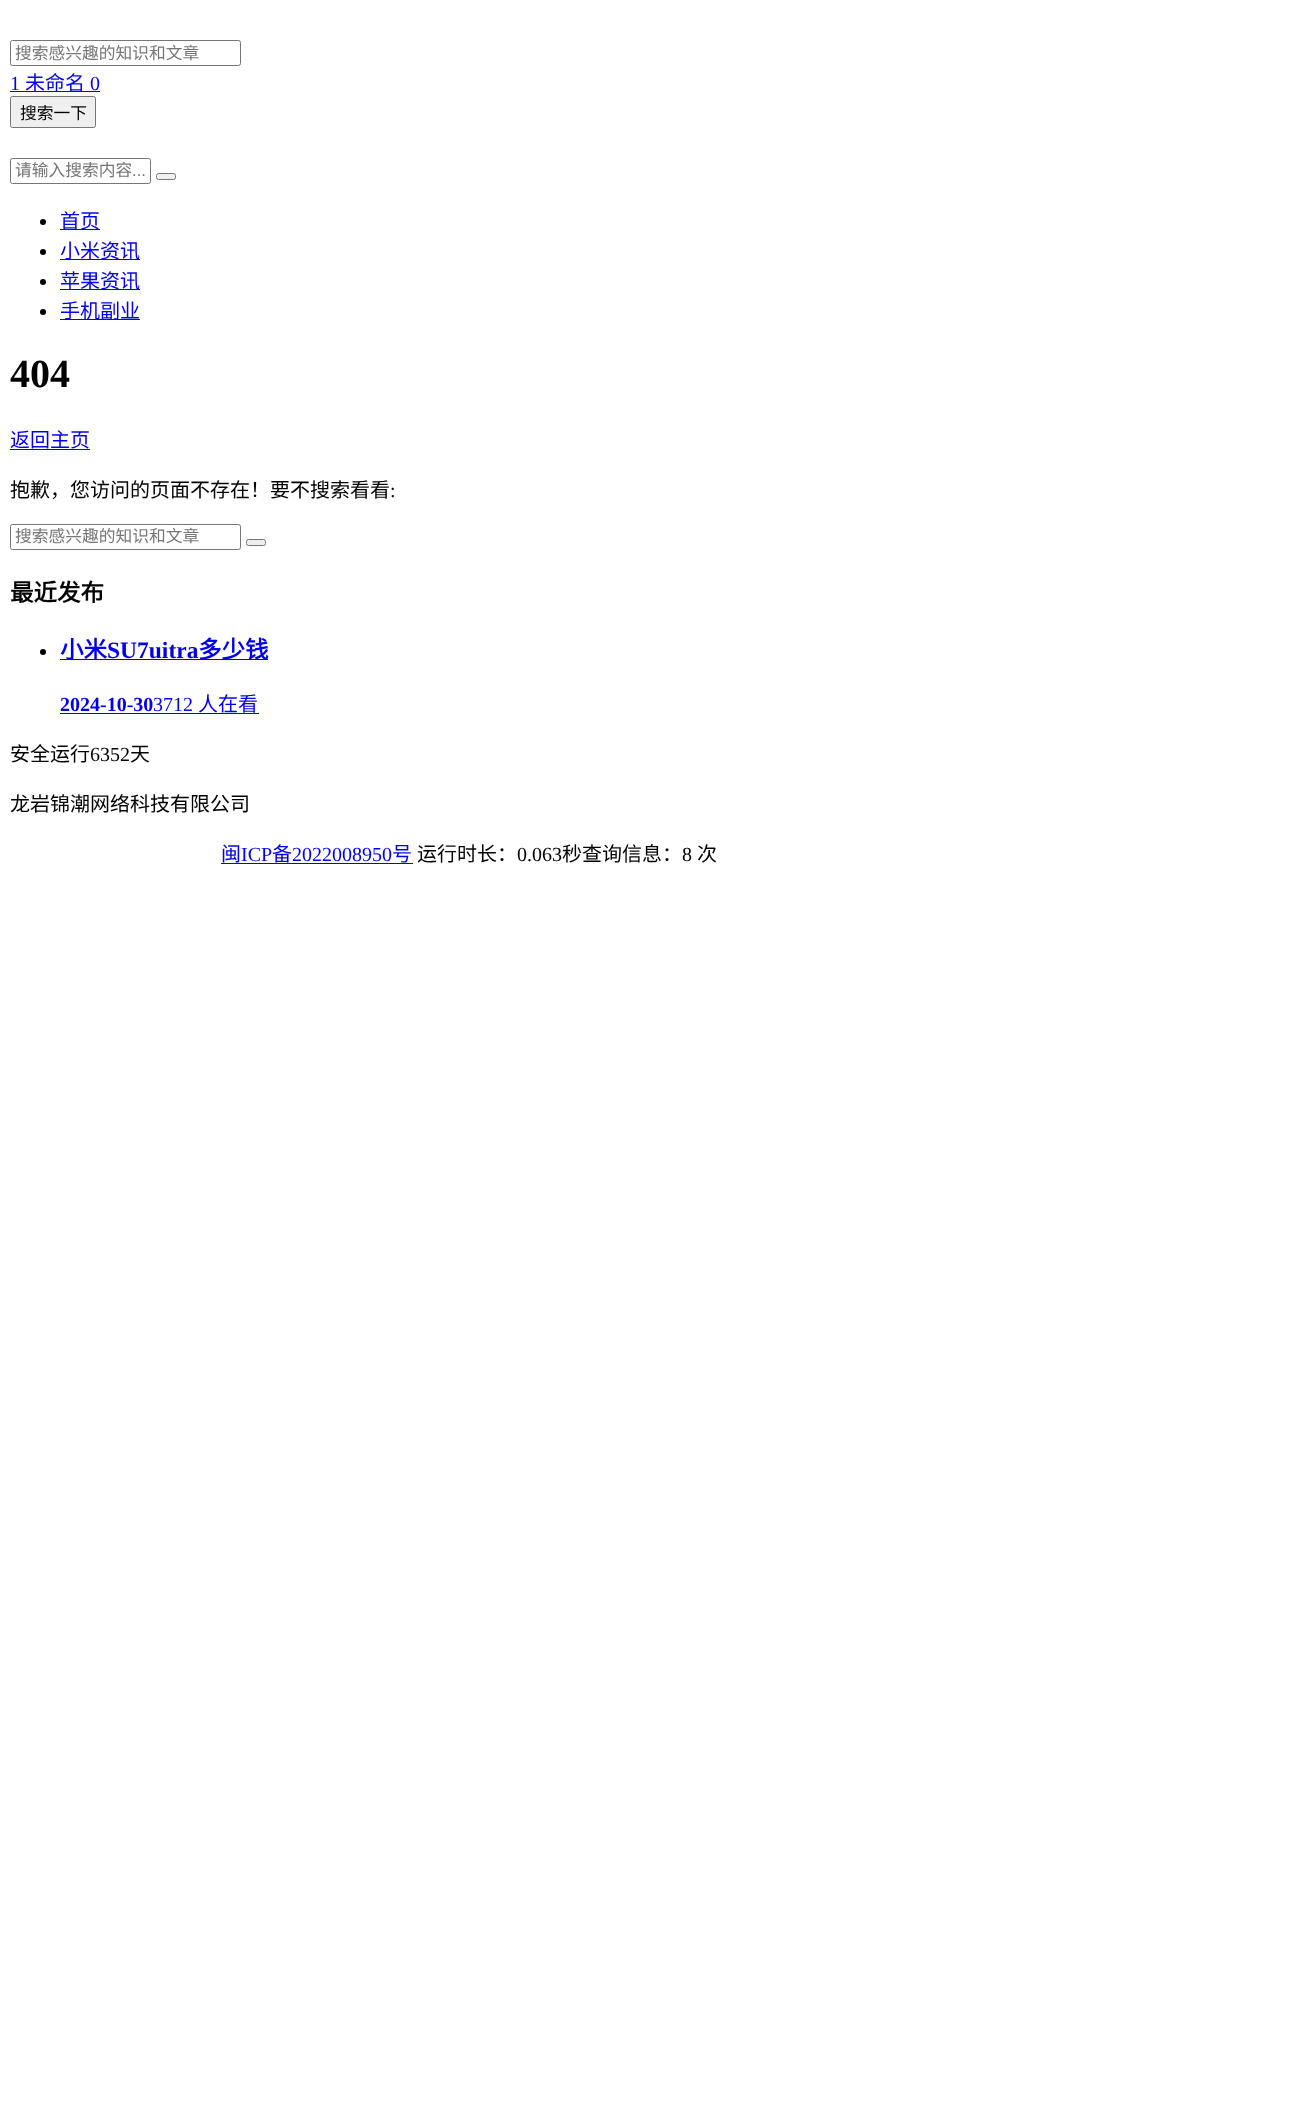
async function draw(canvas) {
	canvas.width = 1312;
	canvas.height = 2121;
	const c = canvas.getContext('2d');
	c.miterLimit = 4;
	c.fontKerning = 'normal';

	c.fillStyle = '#fff';
	c.fillRect(0, 0, 1312, 2121);
	c.beginPath();
	c.roundRect(10.5, 40.5, 230, 25, 2);
	c.strokeStyle = '#767676';
	c.stroke();
	c.font = '16.75px Noto Sans CJK SC';
	c.fillStyle = '#757575';
	c.fillText('搜索感兴趣的知识和文章', 15, 59);
	c.font = '20px Liberation Serif';
	c.fillStyle = '#00e';
	c.fillText('1', 10, 90);
	c.fillRect(10, 91, 90, 1);
	c.font = '20px Noto Sans CJK SC';
	c.fillText('未命名', 25, 90);
	c.font = '20px Liberation Serif';
	c.fillText('0', 90, 90);
	c.fillStyle = '#efefef';
	c.beginPath();
	c.roundRect(10.5, 96.5, 85, 31, 2);
	c.fill();
	c.stroke();
	c.font = '16.75px Noto Sans CJK SC';
	c.fillStyle = '#000';
	c.fillText('搜索一下', 20, 119);
	c.beginPath();
	c.roundRect(10.5, 158.5, 140, 25, 2);
	c.stroke();
	c.fillStyle = '#757575';
	c.fillText('请输入搜索内容', 15, 176);
	c.font = '16.75px Liberation Sans';
	c.fillText('...', 132, 176);
	c.fillStyle = '#efefef';
	c.beginPath();
	c.roundRect(156.5, 173.5, 19, 6, 2);
	c.fill();
	c.stroke();
	c.fillStyle = '#000';
	c.beginPath();
	c.arc(43, 222, 3, 0, 2 * Math.PI);
	c.fill();
	c.fillStyle = '#00e';
	c.fillRect(60, 229, 40, 1);
	c.font = '20px Noto Sans CJK SC';
	c.fillText('首页', 60, 228);
	c.fillStyle = '#000';
	c.beginPath();
	c.arc(43, 252, 3, 0, 2 * Math.PI);
	c.fill();
	c.fillStyle = '#00e';
	c.fillRect(60, 259, 80, 1);
	c.fillText('小米资讯', 60, 258);
	c.fillStyle = '#000';
	c.beginPath();
	c.arc(43, 282, 3, 0, 2 * Math.PI);
	c.fill();
	c.fillStyle = '#00e';
	c.fillRect(60, 289, 80, 1);
	c.fillText('苹果资讯', 60, 288);
	c.fillStyle = '#000';
	c.beginPath();
	c.arc(43, 312, 3, 0, 2 * Math.PI);
	c.fill();
	c.fillStyle = '#00e';
	c.fillRect(60, 319, 80, 1);
	c.fillText('手机副业', 60, 318);
	c.font = 'bold 40px Liberation Serif';
	c.fillStyle = '#000';
	c.fillText('404', 10, 387);
	c.font = '20px Noto Sans CJK SC';
	c.fillStyle = '#00e';
	c.fillText('返回主页', 10, 447);
	c.fillRect(10, 449, 80, 1);
	c.fillStyle = '#000';
	c.fillText('抱歉，您访问的页面不存在！要不搜索看看', 10, 497);
	c.font = '20px Liberation Serif';
	c.fillText(':', 390, 497);
	c.beginPath();
	c.roundRect(10.5, 524.5, 230, 25, 2);
	c.stroke();
	c.font = '16.75px Noto Sans CJK SC';
	c.fillStyle = '#757575';
	c.fillText('搜索感兴趣的知识和文章', 15, 542);
	c.fillStyle = '#efefef';
	c.beginPath();
	c.roundRect(246.5, 539.5, 19, 6, 2);
	c.fill();
	c.stroke();
	c.font = 'bold 23.5px Noto Sans CJK SC';
	c.fillStyle = '#000';
	c.fillText('最近发布', 10, 601);
	c.beginPath();
	c.arc(43, 652, 3, 0, 2 * Math.PI);
	c.fill();
	c.fillStyle = '#00e';
	c.fillRect(60, 659, 208, 1);
	c.fillText('小米', 60, 658);
	c.font = 'bold 23.5px Liberation Serif';
	c.fillText('SU7uitra', 107, 658);
	c.font = 'bold 23.5px Noto Sans CJK SC';
	c.fillText('多少钱', 198, 658);
	c.font = 'bold 20px Liberation Serif';
	c.fillText('2024-10-30', 60, 711);
	c.fillRect(60, 713, 199, 1);
	c.font = '20px Liberation Serif';
	c.fillText('3712', 153, 711);
	c.font = '20px Noto Sans CJK SC';
	c.fillText('人在看', 198, 711);
	c.fillStyle = '#000';
	c.fillText('安全运行', 10, 761);
	c.font = '20px Liberation Serif';
	c.fillText('6352', 90, 761);
	c.font = '20px Noto Sans CJK SC';
	c.fillText('天', 130, 761);
	c.fillText('龙岩锦潮网络科技有限公司', 10, 811);
	c.fillStyle = '#00e';
	c.fillText('闽', 221, 861);
	c.font = '20px Liberation Serif';
	c.fillText('ICP', 241, 861);
	c.fillRect(221, 863, 192, 1);
	c.font = '20px Noto Sans CJK SC';
	c.fillText('备', 272, 861);
	c.font = '20px Liberation Serif';
	c.fillText('2022008950', 292, 861);
	c.font = '20px Noto Sans CJK SC';
	c.fillText('号', 392, 861);
	c.fillStyle = '#000';
	c.fillText('运行时长：', 417, 861);
	c.font = '20px Liberation Serif';
	c.fillText('0.063', 517, 861);
	c.font = '20px Noto Sans CJK SC';
	c.fillText('秒查询信息：', 562, 861);
	c.font = '20px Liberation Serif';
	c.fillText('8', 682, 861);
	c.font = '20px Noto Sans CJK SC';
	c.fillText('次', 697, 861);
}

draw(document.querySelector('canvas'));
